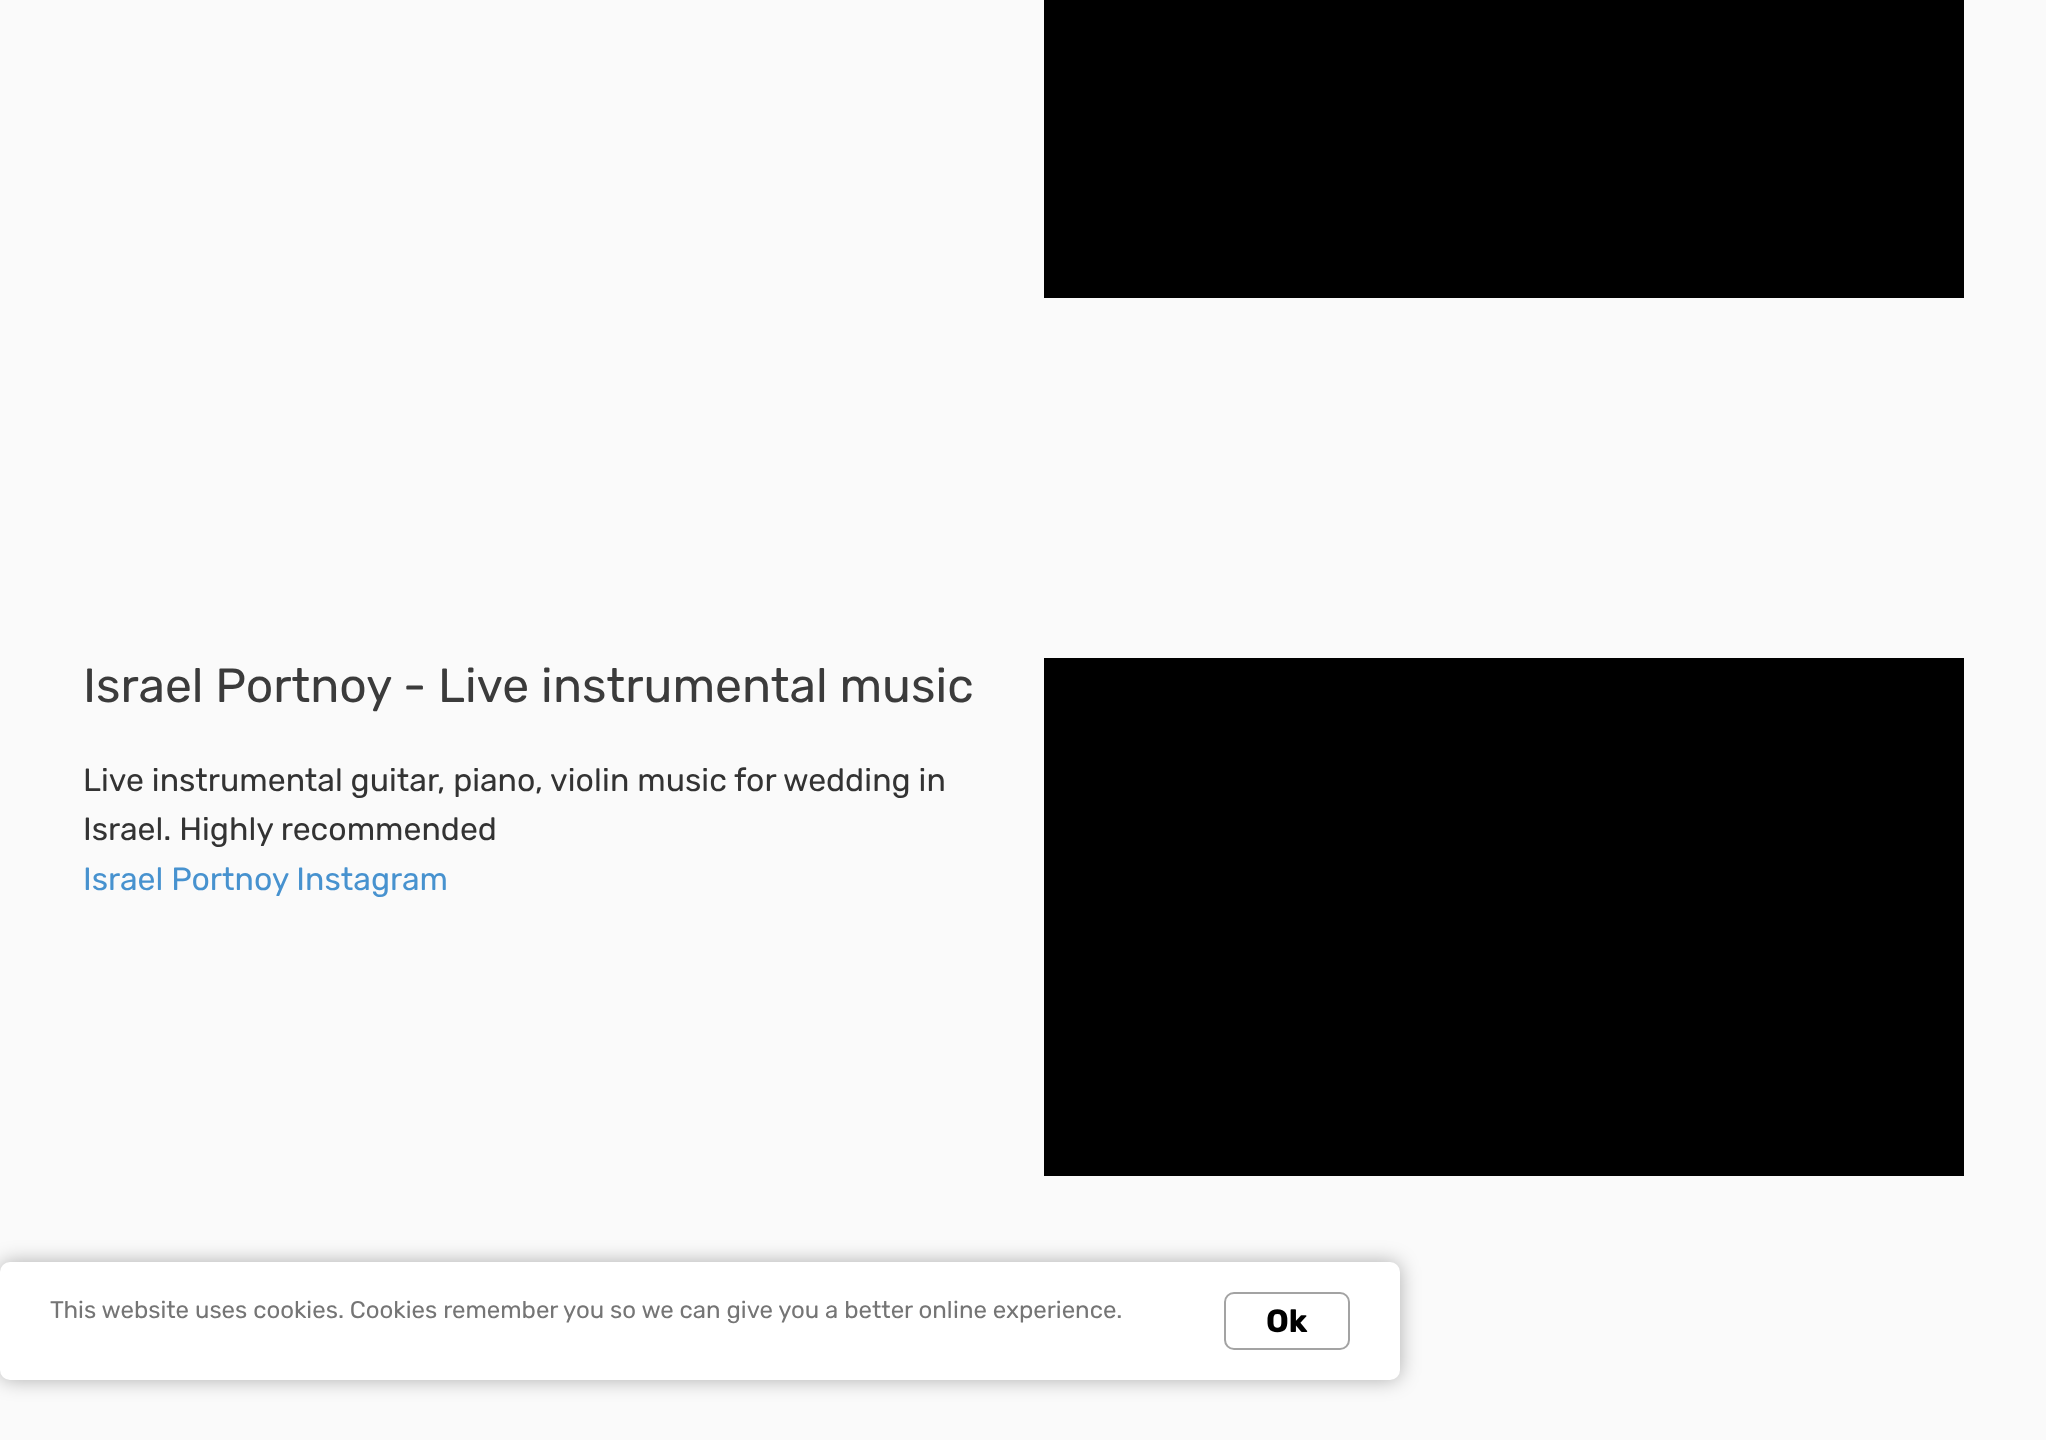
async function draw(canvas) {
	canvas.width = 2046;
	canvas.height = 1440;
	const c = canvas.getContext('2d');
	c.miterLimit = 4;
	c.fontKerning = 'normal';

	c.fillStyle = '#fafafa';
	c.fillRect(0, 0, 2046, 1440);
	c.fillStyle = '#000';
	c.fillRect(1044, 0, 920, 298);
	c.font = '48px Rubik';
	c.fillStyle = '#3b3b3b';
	c.fillText('Israel Portnoy - Live instrumental music', 83, 702);
	c.font = '32px Rubik';
	c.fillStyle = '#333';
	c.fillText('Live instrumental guitar, piano, violin music for wedding in', 83, 791);
	c.fillText('Israel. Highly recommended', 83, 840);
	c.fillStyle = '#4792cf';
	c.fillText('Israel Portnoy Instagram', 83, 890);
	c.fillStyle = '#000';
	c.fillRect(1044, 658, 920, 518);
	c.fillStyle = '#0000004d';
	c.filter = 'blur(10px)';
	c.beginPath();
	c.roundRect(0, 1262, 1400, 118, 10);
	c.fill();
	c.filter = 'none';
	c.fillStyle = '#fff';
	c.beginPath();
	c.roundRect(0, 1262, 1400, 118, 10);
	c.fill();
	c.font = '24px Rubik';
	c.fillStyle = '#757575';
	c.fillText('This website uses cookies. Cookies remember you so we can give you a better online experience.', 50, 1318);
	c.beginPath();
	c.roundRect(1225, 1293, 124, 56, 9);
	c.strokeStyle = '#a3a3a3';
	c.lineWidth = 2;
	c.stroke();
	c.font = 'bold 32px Rubik';
	c.fillStyle = '#000';
	c.fillText('Ok', 1266, 1332);
}

draw(document.querySelector('canvas'));
